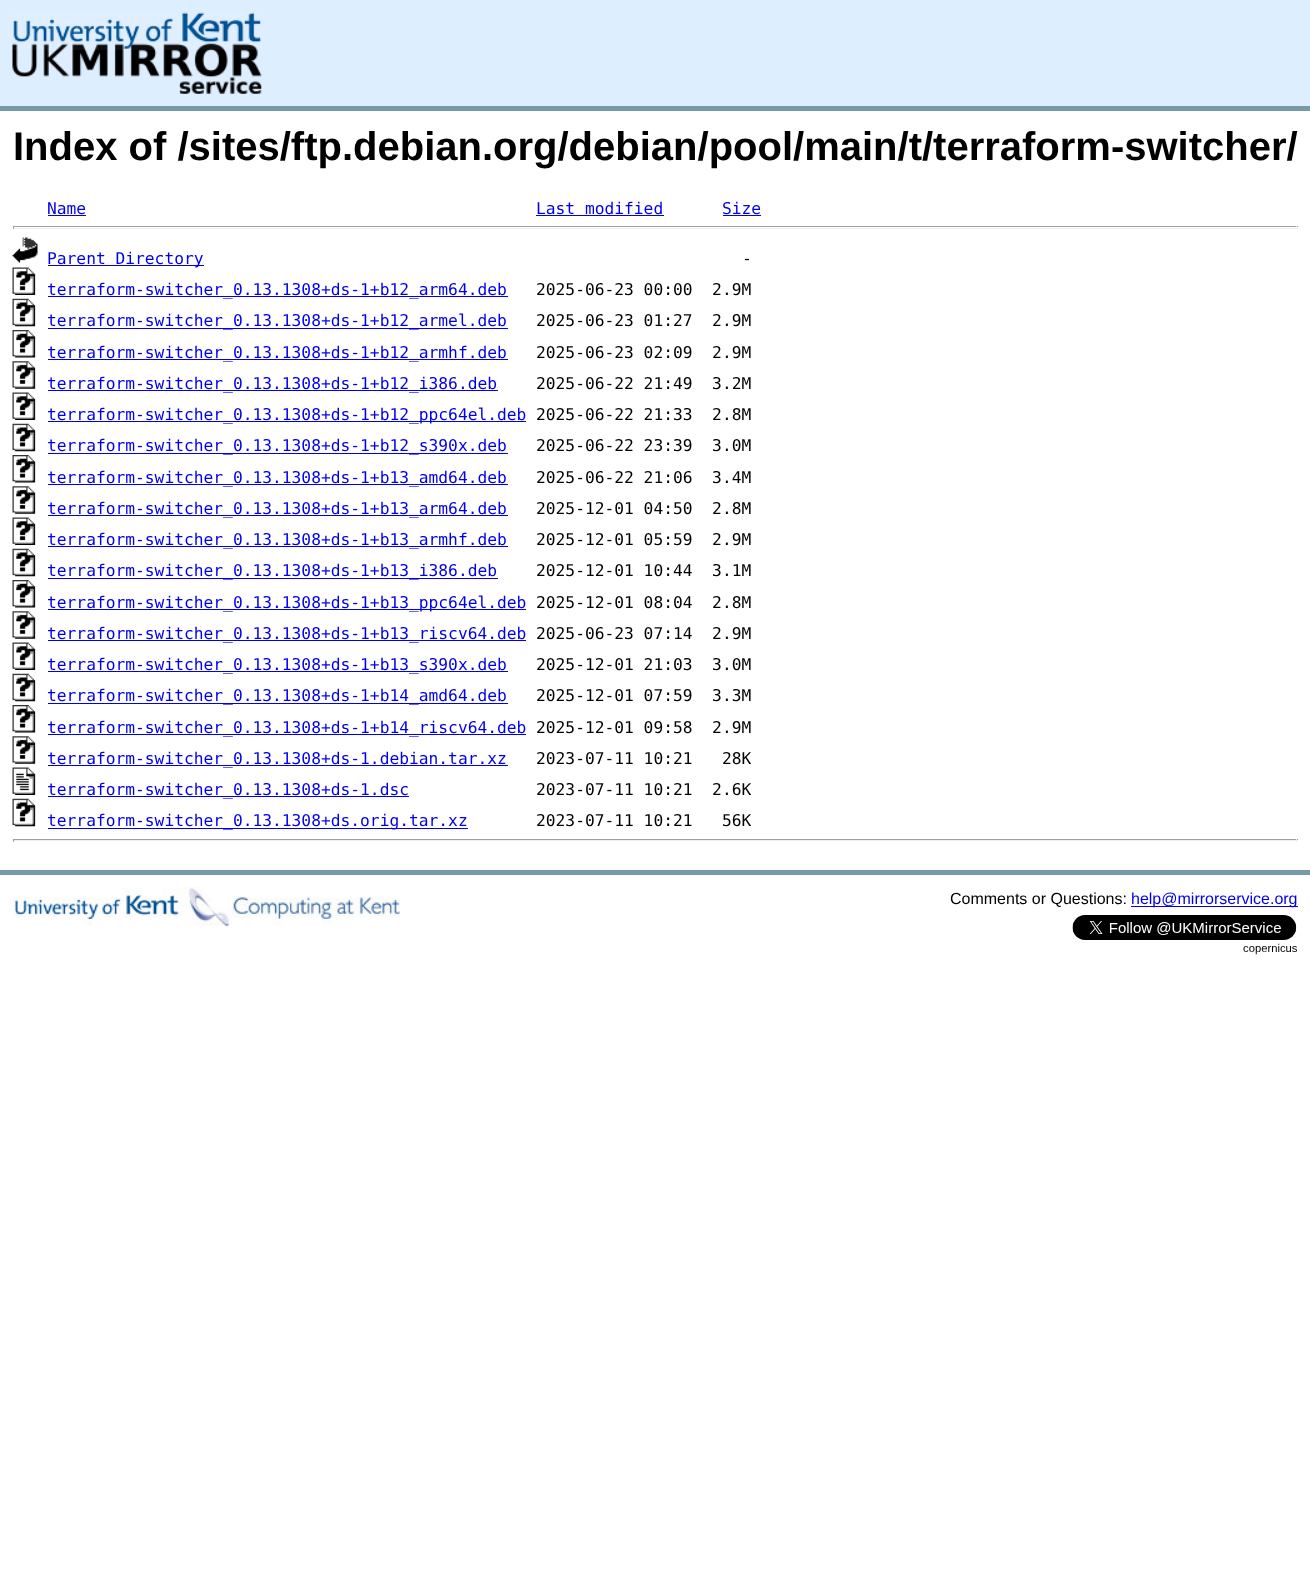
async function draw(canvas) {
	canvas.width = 1310;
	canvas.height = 1588;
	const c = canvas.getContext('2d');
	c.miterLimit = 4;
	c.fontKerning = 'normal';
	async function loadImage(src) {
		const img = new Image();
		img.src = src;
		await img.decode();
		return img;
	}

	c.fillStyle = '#fff';
	c.fillRect(0, 0, 1310, 1588);
	c.fillStyle = '#def';
	c.fillRect(0, 0, 1310, 106);
	c.fillStyle = '#79a';
	c.fillRect(0, 106, 1310, 5);
	c.drawImage(await loadImage('img1.png'), 12, 12, 250, 82);
	c.font = 'bold 40px Liberation Sans';
	c.fillStyle = '#000';
	c.fillText('Index of /sites/ftp.debian.org/debian/pool/main/t/terraform-switcher/', 13, 160);
	c.font = '16.25px DejaVu Sans Mono';
	c.fillStyle = '#00e';
	c.fillText('Name', 47, 214);
	c.fillRect(48, 215, 38, 1);
	c.fillText('Last modified', 536, 214);
	c.fillRect(536, 215, 128, 1);
	c.fillText('Size', 722, 214);
	for (const [x, y, w, h, color] of [
		[723, 215, 38, 1, '#00e'],
		[13, 226, 1285, 1, '#9f9f9f'],
		[1296, 226, 1, 3, '#eee'],
		[13, 228, 1285, 1, '#eee'],
		[13, 226, 1, 3, '#9f9f9f'],
	]) {
		c.fillStyle = color;
		c.fillRect(x, y, w, h);
	}
	c.drawImage(await loadImage('img2.png'), 12, 237, 26, 26);
	c.fillStyle = '#00e';
	c.fillRect(48, 265, 156, 1);
	c.fillText('Parent Directory', 47, 264);
	c.fillStyle = '#000';
	c.fillText('-', 742, 264);
	c.drawImage(await loadImage('img3.png'), 12, 267, 24, 28);
	c.fillStyle = '#00e';
	c.fillRect(48, 296, 460, 1);
	c.fillText('terraform-switcher_0.13.1308+ds-1+b12_arm64.deb', 47, 295);
	c.fillStyle = '#000';
	c.fillText('2025-06-23 00:00  2.9M', 536, 295);
	c.drawImage(await loadImage('img4.png'), 12, 298, 24, 29);
	c.fillStyle = '#00e';
	c.fillRect(48, 328, 460, 1);
	c.fillText('terraform-switcher_0.13.1308+ds-1+b12_armel.deb', 47, 326);
	c.fillStyle = '#000';
	c.fillText('2025-06-23 01:27  2.9M', 536, 326);
	c.drawImage(await loadImage('img5.png'), 12, 330, 24, 28);
	c.fillStyle = '#00e';
	c.fillRect(48, 359, 460, 1);
	c.fillText('terraform-switcher_0.13.1308+ds-1+b12_armhf.deb', 47, 358);
	c.fillStyle = '#000';
	c.fillText('2025-06-23 02:09  2.9M', 536, 358);
	c.drawImage(await loadImage('img6.png'), 12, 361, 24, 28);
	c.fillStyle = '#00e';
	c.fillRect(48, 390, 450, 1);
	c.fillText('terraform-switcher_0.13.1308+ds-1+b12_i386.deb', 47, 389);
	c.fillStyle = '#000';
	c.fillText('2025-06-22 21:49  3.2M', 536, 389);
	c.drawImage(await loadImage('img3.png'), 12, 392, 24, 28);
	c.fillStyle = '#00e';
	c.fillRect(48, 421, 478, 1);
	c.fillText('terraform-switcher_0.13.1308+ds-1+b12_ppc64el.deb', 47, 420);
	c.fillStyle = '#000';
	c.fillText('2025-06-22 21:33  2.8M', 536, 420);
	c.drawImage(await loadImage('img4.png'), 12, 423, 24, 29);
	c.fillStyle = '#00e';
	c.fillRect(48, 453, 460, 1);
	c.fillText('terraform-switcher_0.13.1308+ds-1+b12_s390x.deb', 47, 451);
	c.fillStyle = '#000';
	c.fillText('2025-06-22 23:39  3.0M', 536, 451);
	c.drawImage(await loadImage('img5.png'), 12, 455, 24, 28);
	c.fillStyle = '#00e';
	c.fillRect(48, 484, 460, 1);
	c.fillText('terraform-switcher_0.13.1308+ds-1+b13_amd64.deb', 47, 483);
	c.fillStyle = '#000';
	c.fillText('2025-06-22 21:06  3.4M', 536, 483);
	c.drawImage(await loadImage('img6.png'), 12, 486, 24, 28);
	c.fillStyle = '#00e';
	c.fillRect(48, 515, 460, 1);
	c.fillText('terraform-switcher_0.13.1308+ds-1+b13_arm64.deb', 47, 514);
	c.fillStyle = '#000';
	c.fillText('2025-12-01 04:50  2.8M', 536, 514);
	c.drawImage(await loadImage('img3.png'), 12, 517, 24, 28);
	c.fillStyle = '#00e';
	c.fillRect(48, 546, 460, 1);
	c.fillText('terraform-switcher_0.13.1308+ds-1+b13_armhf.deb', 47, 545);
	c.fillStyle = '#000';
	c.fillText('2025-12-01 05:59  2.9M', 536, 545);
	c.drawImage(await loadImage('img4.png'), 12, 548, 24, 29);
	c.fillStyle = '#00e';
	c.fillRect(48, 578, 450, 1);
	c.fillText('terraform-switcher_0.13.1308+ds-1+b13_i386.deb', 47, 576);
	c.fillStyle = '#000';
	c.fillText('2025-12-01 10:44  3.1M', 536, 576);
	c.drawImage(await loadImage('img7.png'), 12, 580, 24, 28);
	c.fillStyle = '#00e';
	c.fillRect(48, 609, 478, 1);
	c.fillText('terraform-switcher_0.13.1308+ds-1+b13_ppc64el.deb', 47, 608);
	c.fillStyle = '#000';
	c.fillText('2025-12-01 08:04  2.8M', 536, 608);
	c.drawImage(await loadImage('img6.png'), 12, 611, 24, 28);
	c.fillStyle = '#00e';
	c.fillRect(48, 640, 478, 1);
	c.fillText('terraform-switcher_0.13.1308+ds-1+b13_riscv64.deb', 47, 639);
	c.fillStyle = '#000';
	c.fillText('2025-06-23 07:14  2.9M', 536, 639);
	c.drawImage(await loadImage('img3.png'), 12, 642, 24, 28);
	c.fillStyle = '#00e';
	c.fillRect(48, 671, 460, 1);
	c.fillText('terraform-switcher_0.13.1308+ds-1+b13_s390x.deb', 47, 670);
	c.fillStyle = '#000';
	c.fillText('2025-12-01 21:03  3.0M', 536, 670);
	c.drawImage(await loadImage('img4.png'), 12, 673, 24, 29);
	c.fillStyle = '#00e';
	c.fillRect(48, 703, 460, 1);
	c.fillText('terraform-switcher_0.13.1308+ds-1+b14_amd64.deb', 47, 701);
	c.fillStyle = '#000';
	c.fillText('2025-12-01 07:59  3.3M', 536, 701);
	c.drawImage(await loadImage('img5.png'), 12, 705, 24, 28);
	c.fillStyle = '#00e';
	c.fillRect(48, 734, 478, 1);
	c.fillText('terraform-switcher_0.13.1308+ds-1+b14_riscv64.deb', 47, 733);
	c.fillStyle = '#000';
	c.fillText('2025-12-01 09:58  2.9M', 536, 733);
	c.drawImage(await loadImage('img6.png'), 12, 736, 24, 28);
	c.fillStyle = '#00e';
	c.fillRect(48, 765, 460, 1);
	c.fillText('terraform-switcher_0.13.1308+ds-1.debian.tar.xz', 47, 764);
	c.fillStyle = '#000';
	c.fillText('2023-07-11 10:21   28K', 536, 764);
	c.drawImage(await loadImage('img8.png'), 12, 767, 24, 28);
	c.fillStyle = '#00e';
	c.fillRect(48, 796, 361, 1);
	c.fillText('terraform-switcher_0.13.1308+ds-1.dsc', 47, 795);
	c.fillStyle = '#000';
	c.fillText('2023-07-11 10:21  2.6K', 536, 795);
	c.drawImage(await loadImage('img4.png'), 12, 798, 24, 29);
	c.fillStyle = '#00e';
	c.fillRect(48, 828, 420, 1);
	c.fillText('terraform-switcher_0.13.1308+ds.orig.tar.xz', 47, 826);
	c.fillStyle = '#000';
	c.fillText('2023-07-11 10:21   56K', 536, 826);
	for (const [x, y, w, h, color] of [
		[13, 839, 1285, 1, '#9f9f9f'],
		[1296, 839, 1, 3, '#eee'],
		[13, 840, 1285, 1, '#eee'],
		[13, 839, 1, 3, '#9f9f9f'],
		[0, 870, 1310, 5, '#79a'],
	]) {
		c.fillStyle = color;
		c.fillRect(x, y, w, h);
	}
	c.drawImage(await loadImage('img9.png'), 12, 887, 388, 40);
	c.font = '16px Liberation Sans';
	c.fillStyle = '#000';
	c.fillText('Comments or Questions:', 950, 904);
	c.fillStyle = '#00e';
	c.fillRect(1131, 906, 167, 1);
	c.fillText('help@mirrorservice.org', 1131, 904);
	c.drawImage(await loadImage('img10.png'), 1072, 915, 225, 25);
	c.font = '11.25px Liberation Sans';
	c.fillStyle = '#000';
	c.fillText('copernicus', 1243, 952);
}

draw(document.querySelector('canvas'));
